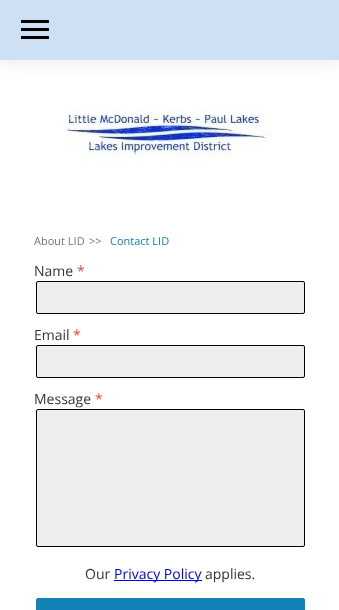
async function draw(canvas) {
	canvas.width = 339;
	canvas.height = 610;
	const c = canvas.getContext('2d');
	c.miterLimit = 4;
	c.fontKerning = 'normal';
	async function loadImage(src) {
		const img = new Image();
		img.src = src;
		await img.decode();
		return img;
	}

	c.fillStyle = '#fff';
	c.fillRect(0, 0, 339, 610);
	c.fillStyle = '#0000001a';
	c.filter = 'blur(10px)';
	c.beginPath();
	c.rect(0, 0, 339, 60);
	c.fill();
	c.filter = 'none';
	for (const [x, y, w, h, color] of [
		[0, 0, 339, 60, '#cee1f4'],
		[21, 28, 28, 3, '#000'],
		[21, 20, 28, 3, '#000'],
		[21, 36, 28, 3, '#000'],
	]) {
		c.fillStyle = color;
		c.fillRect(x, y, w, h);
	}
	c.drawImage(await loadImage('img1.png'), 64, 108, 208, 55);
	c.font = '11px Open Sans';
	c.fillStyle = '#757575';
	c.fillText('About LID', 34, 245);
	c.fillText('>>', 89, 245);
	c.fillStyle = '#1382b9';
	c.fillText('Contact LID', 110, 245);
	c.font = '14px Open Sans';
	c.fillStyle = '#333';
	c.fillText('Name', 34, 276);
	c.fillStyle = '#eb433e';
	c.fillText('*', 77, 276);
	c.fillStyle = '#ededed';
	c.beginPath();
	c.roundRect(36.5, 281.5, 268, 32, 1.5);
	c.fill();
	c.strokeStyle = '#000';
	c.stroke();
	c.fillStyle = '#333';
	c.fillText('Email', 34, 340);
	c.fillStyle = '#eb433e';
	c.fillText('*', 73, 340);
	c.fillStyle = '#ededed';
	c.beginPath();
	c.roundRect(36.5, 345.5, 268, 32, 1.5);
	c.fill();
	c.stroke();
	c.fillStyle = '#333';
	c.fillText('Message', 34, 404);
	c.fillStyle = '#eb433e';
	c.fillText('*', 95, 404);
	c.fillStyle = '#ededed';
	c.beginPath();
	c.roundRect(36.5, 409.5, 268, 137, 1.5);
	c.fill();
	c.stroke();
	c.fillStyle = '#333';
	c.fillText('Our', 85, 579);
	c.fillStyle = '#00e';
	c.fillRect(114, 580, 88, 1);
	c.fillText('Privacy Policy', 114, 579);
	c.fillStyle = '#333';
	c.fillText('applies.', 205, 579);
	c.fillStyle = '#1382b9';
	c.beginPath();
	c.roundRect(36.5, 598.5, 268, 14, 1.5);
	c.fill();
	c.strokeStyle = '#1382b9';
	c.stroke();
}

draw(document.querySelector('canvas'));
